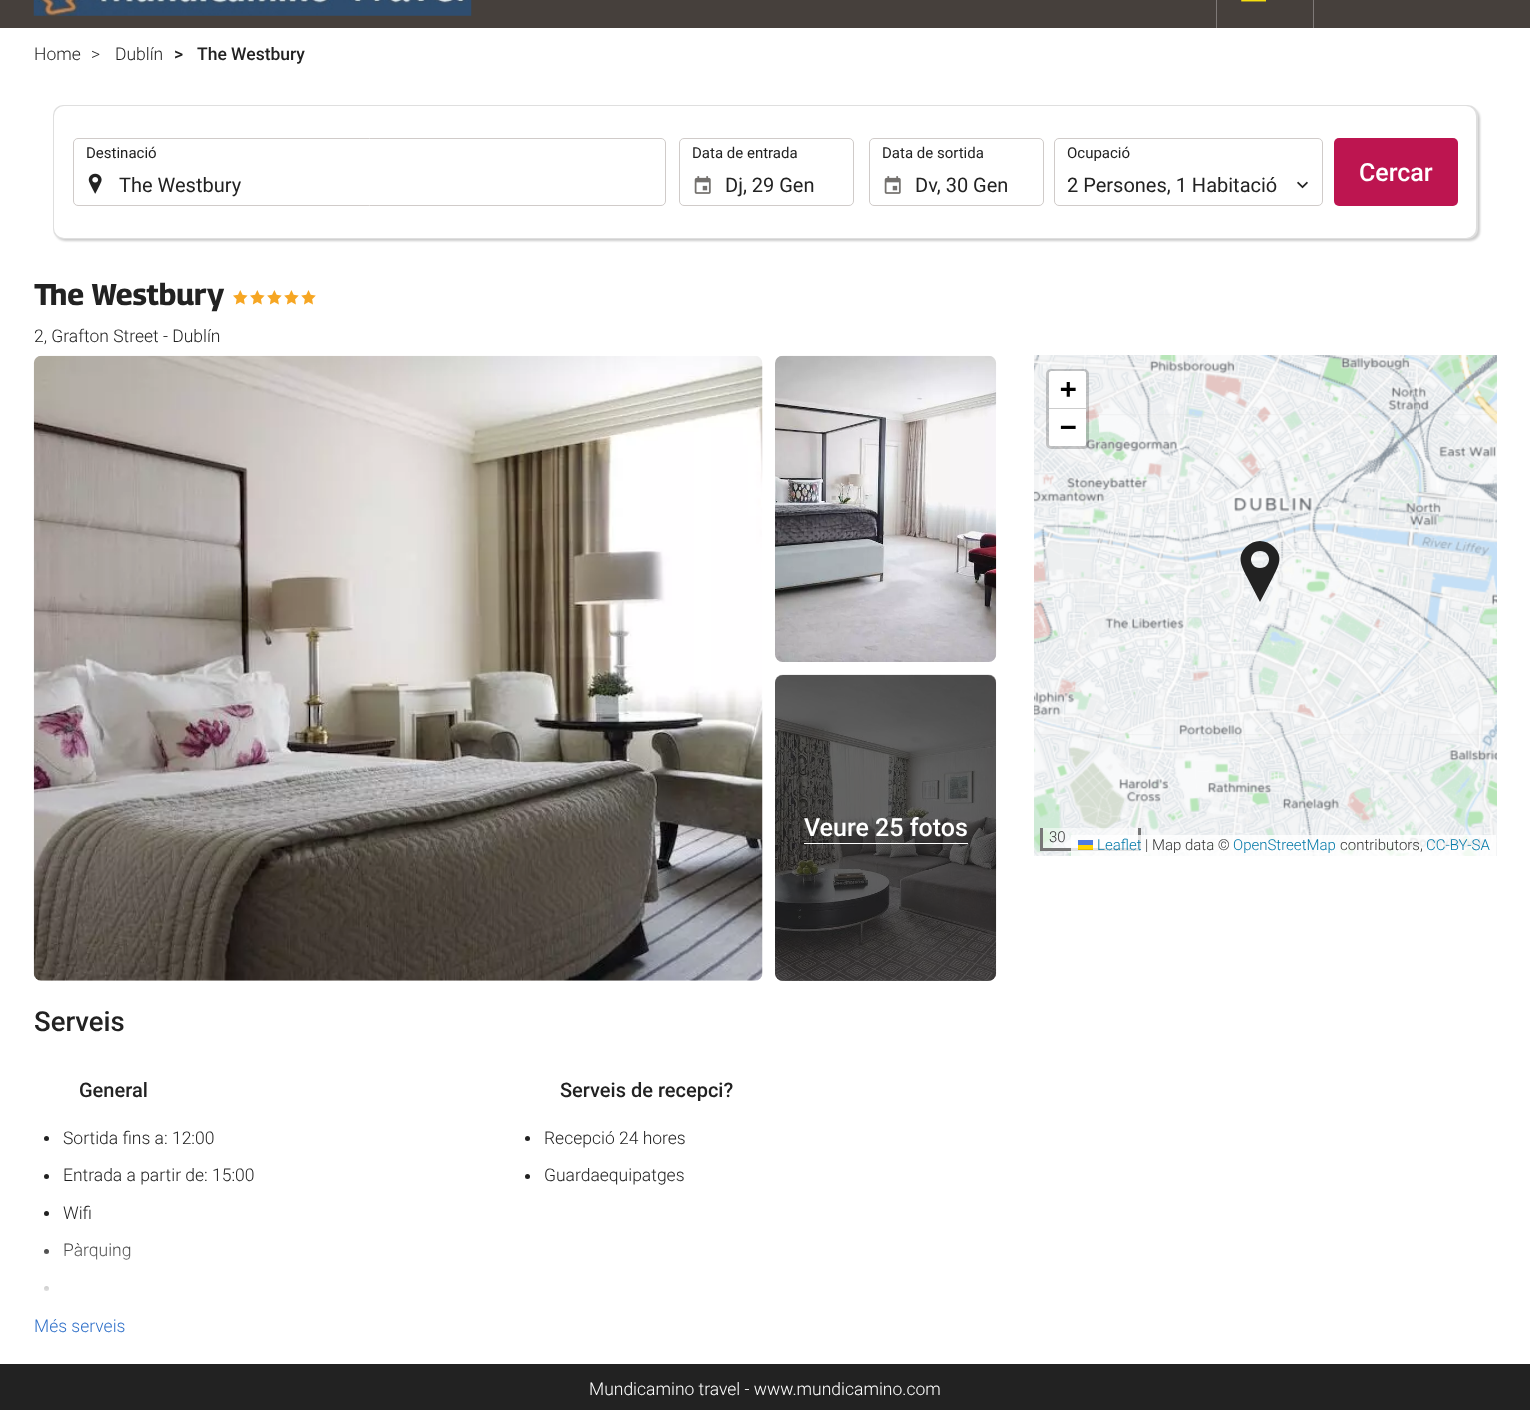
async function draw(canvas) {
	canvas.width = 1530;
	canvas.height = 1410;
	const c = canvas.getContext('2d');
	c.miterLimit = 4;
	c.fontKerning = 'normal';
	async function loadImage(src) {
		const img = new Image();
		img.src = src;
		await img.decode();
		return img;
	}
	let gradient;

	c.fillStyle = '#fff';
	c.fillRect(0, 0, 1530, 1410);
	c.fillStyle = '#46403c';
	c.fillRect(0, 0, 1530, 28);
	c.drawImage(await loadImage('img1.png'), 33, 0, 439, 16);
	c.fillStyle = '#7e7977';
	c.fillRect(1216, 0, 1, 28);
	c.fillRect(1313, 0, 1, 28);
	c.drawImage(await loadImage('img2.png'), 1241, 0, 25, 2);
	c.font = '300 17.5px Roboto';
	c.fillStyle = '#222';
	for (const [text, x, y] of [
		['Home', 34, 60],
		['>', 91, 60],
		['Dublín', 115, 60],
	]) {
		c.fillText(text, x, y);
	}
	c.font = '500 17.5px Roboto';
	c.fillText('>', 174, 60);
	c.fillText('The Westbury', 197, 60);
	c.fillStyle = '#00000033';
	c.filter = 'blur(1px)';
	c.beginPath();
	c.roundRect(55, 108, 1425, 133, 10);
	c.fill();
	c.filter = 'none';
	c.fillStyle = '#dfdfdf';
	c.beginPath();
	c.roundRect(53, 105, 1425, 134, 10);
	c.fill();
	c.fillStyle = '#fff';
	c.beginPath();
	c.roundRect(54, 106, 1422, 132, 10);
	c.fill();
	c.drawImage(await loadImage('img3.png'), 88, 173, 14, 21);
	c.beginPath();
	c.roundRect(73.5, 138.5, 592, 67, 4.5);
	c.strokeStyle = '#d0cbc9';
	c.stroke();
	c.font = '15px Roboto';
	c.fillStyle = '#222';
	c.fillText('Destinació', 86, 158);
	c.font = '20px Roboto';
	c.fillText('The Westbury', 119, 192);
	c.drawImage(await loadImage('img4.png'), 694, 176, 17, 18);
	c.beginPath();
	c.roundRect(679.5, 138.5, 174, 67, 4.5);
	c.stroke();
	c.font = '15px Roboto';
	c.fillText('Data de entrada', 692, 158);
	c.font = '20px Roboto';
	c.fillText('Dj, 29 Gen', 725, 192);
	c.drawImage(await loadImage('img4.png'), 884, 176, 17, 18);
	c.beginPath();
	c.roundRect(869.5, 138.5, 174, 67, 4.5);
	c.stroke();
	c.font = '15px Roboto';
	c.fillText('Data de sortida', 882, 158);
	c.font = '20px Roboto';
	c.fillText('Dv, 30 Gen', 915, 192);
	c.beginPath();
	c.roundRect(1054.5, 138.5, 268, 67, 4.5);
	c.stroke();
	c.font = '15px Roboto';
	c.fillText('Ocupació', 1067, 158);
	c.font = '20px Roboto';
	c.fillText('2 Persones, 1 Habitació', 1067, 192);
	c.drawImage(await loadImage('img5.png'), 1297, 181, 11, 8);
	c.fillStyle = '#bd1550';
	c.beginPath();
	c.roundRect(1334, 138, 124, 68, 5);
	c.fill();
	c.font = '500 25px Roboto';
	c.fillStyle = '#fff';
	c.fillText('Cercar', 1359, 181);
	c.font = 'bold 30px Georama';
	c.fillStyle = '#222';
	c.fillText('The Westbury', 34, 305);
	c.drawImage(await loadImage('img6.png'), 233, 290, 83, 15);
	c.font = '300 17.5px Roboto';
	c.fillText('2, Grafton Street - Dublín', 34, 342);
	c.fillStyle = '#ddd';
	c.fillRect(1034, 414, 462, 322);
	c.drawImage(await loadImage('img11.png'), 1098, 414, 321, 322);
	c.drawImage(await loadImage('img10.png'), 1034, 414, 65, 321);
	c.drawImage(await loadImage('img7.png'), 1034, 355, 65, 60);
	c.drawImage(await loadImage('img8.png'), 1099, 355, 320, 60);
	c.drawImage(await loadImage('img12.png'), 1419, 414, 78, 321);
	c.drawImage(await loadImage('img9.png'), 1419, 355, 78, 60);
	c.drawImage(await loadImage('img13.png'), 1034, 734, 65, 122);
	c.drawImage(await loadImage('img14.png'), 1099, 734, 320, 122);
	c.drawImage(await loadImage('img15.png'), 1419, 734, 78, 122);
	c.fillStyle = '#222';
	c.beginPath();
	c.moveTo(1260, 541);
	c.bezierCurveTo(1255, 541, 1250, 543, 1246, 547);
	c.bezierCurveTo(1236, 557, 1242, 567, 1247, 577);
	c.lineTo(1260, 602);
	c.lineTo(1273, 577);
	c.bezierCurveTo(1278, 567, 1284, 557, 1274, 547);
	c.bezierCurveTo(1270, 543, 1265, 541, 1260, 541);
	c.closePath();
	c.moveTo(1260, 568);
	c.bezierCurveTo(1248, 568, 1248, 551, 1260, 551);
	c.bezierCurveTo(1272, 551, 1272, 568, 1260, 568);
	c.closePath();
	c.fill('evenodd');
	c.beginPath();
	c.roundRect(1047.5, 370.5, 40, 77, 3.5);
	c.strokeStyle = '#00000033';
	c.lineWidth = 3;
	c.stroke();
	c.fillStyle = '#fff';
	c.beginPath();
	c.roundRect(1049, 371, 37, 38, [2.5, 2.5, 0, 0]);
	c.fill();
	c.fillStyle = '#ccc';
	c.fillRect(1049, 408, 37, 1);
	c.font = 'bold 27.5px DejaVu Sans Mono';
	c.fillStyle = '#000';
	c.fillText('+', 1060, 398);
	c.fillStyle = '#fff';
	c.beginPath();
	c.roundRect(1049, 409, 37, 37, [0, 0, 2.5, 2.5]);
	c.fill();
	c.fillStyle = '#000';
	c.fillText('−', 1060, 436);
	for (const [x, y, w, h, color] of [
		[1043, 828, 95, 20, '#ffffff80'],
		[1138, 828, 3, 22, '#777'],
		[1040, 848, 100, 3, '#777'],
		[1040, 828, 3, 22, '#777'],
	]) {
		c.fillStyle = color;
		c.fillRect(x, y, w, h);
	}
	c.font = '300 15px Roboto';
	c.fillStyle = '#333';
	c.fillText('30', 1049, 842);
	c.fillStyle = '#ffffffcc';
	c.fillRect(1071, 835, 425, 21);
	c.fillStyle = '#0078a8';
	c.fillText('Leaflet', 1097, 850);
	for (const [x, y, w, h, color] of [
		[1078, 840, 15, 5, '#4c7be1'],
		[1078, 845, 15, 4, '#ffd500'],
		[1078, 849, 15, 1, '#e0bc00'],
	]) {
		c.fillStyle = color;
		c.fillRect(x, y, w, h);
	}
	c.fillStyle = '#333';
	c.fillText('| Map data ©', 1145, 850);
	c.fillStyle = '#0078a8';
	c.fillText('OpenStreetMap', 1233, 850);
	c.fillStyle = '#333';
	c.fillText('contributors,', 1340, 850);
	c.fillStyle = '#0078a8';
	c.fillText('CC-BY-SA', 1426, 850);
	c.drawImage(await loadImage('img16.png'), 33, 355, 730, 626);
	c.drawImage(await loadImage('img17.png'), 775, 355, 222, 307);
	c.drawImage(await loadImage('img18.png'), 775, 674, 222, 307);
	c.fillStyle = '#222222b3';
	c.beginPath();
	c.roundRect(775, 675, 221, 306, 8);
	c.fill();
	c.font = '500 25px Roboto';
	c.fillStyle = '#fff';
	c.fillText('Veure 25 fotos', 804, 836);
	c.fillRect(804, 843, 164, 1);
	c.font = '500 27.5px Roboto';
	c.fillStyle = '#222';
	c.fillText('Serveis', 34, 1031);
	c.font = '500 20px Roboto';
	c.fillText('General', 79, 1097);
	c.beginPath();
	c.arc(46.5, 1138.5, 2.5, 0, 2 * Math.PI);
	c.fill();
	c.font = '300 17.5px Roboto';
	c.fillText('Sortida fins a: 12:00', 63, 1144);
	c.beginPath();
	c.arc(46.5, 1176.5, 2.5, 0, 2 * Math.PI);
	c.fill();
	c.fillText('Entrada a partir de: 15:00', 63, 1181);
	c.beginPath();
	c.arc(46.5, 1213.5, 2.5, 0, 2 * Math.PI);
	c.fill();
	c.fillText('Wifi', 63, 1219);
	c.beginPath();
	c.arc(46.5, 1251.5, 2.5, 0, 2 * Math.PI);
	c.fill();
	c.fillText('Pàrquing', 63, 1256);
	c.beginPath();
	c.arc(46.5, 1288.5, 2.5, 0, 2 * Math.PI);
	c.fill();
	c.font = '500 20px Roboto';
	c.fillText('Serveis de recepci?', 560, 1097);
	c.beginPath();
	c.arc(527.5, 1138.5, 2.5, 0, 2 * Math.PI);
	c.fill();
	c.font = '300 17.5px Roboto';
	c.fillText('Recepció 24 hores', 544, 1144);
	c.beginPath();
	c.arc(527.5, 1176.5, 2.5, 0, 2 * Math.PI);
	c.fill();
	c.fillText('Guardaequipatges', 544, 1181);
	gradient = c.createLinearGradient(515, 1238, 515, 1300);
	gradient.addColorStop(0, '#ffffff00');
	gradient.addColorStop(1, '#fff');
	c.fillStyle = gradient;
	c.fillRect(44, 1243, 86, 48);
	c.fillStyle = '#3171c9';
	c.fillText('Més serveis', 34, 1332);
	c.fillStyle = '#222';
	c.fillRect(0, 1364, 1530, 46);
	c.fillStyle = '#fff';
	c.fillText('Mundicamino travel - www.mundicamino.com', 589, 1395);
}

draw(document.querySelector('canvas'));
